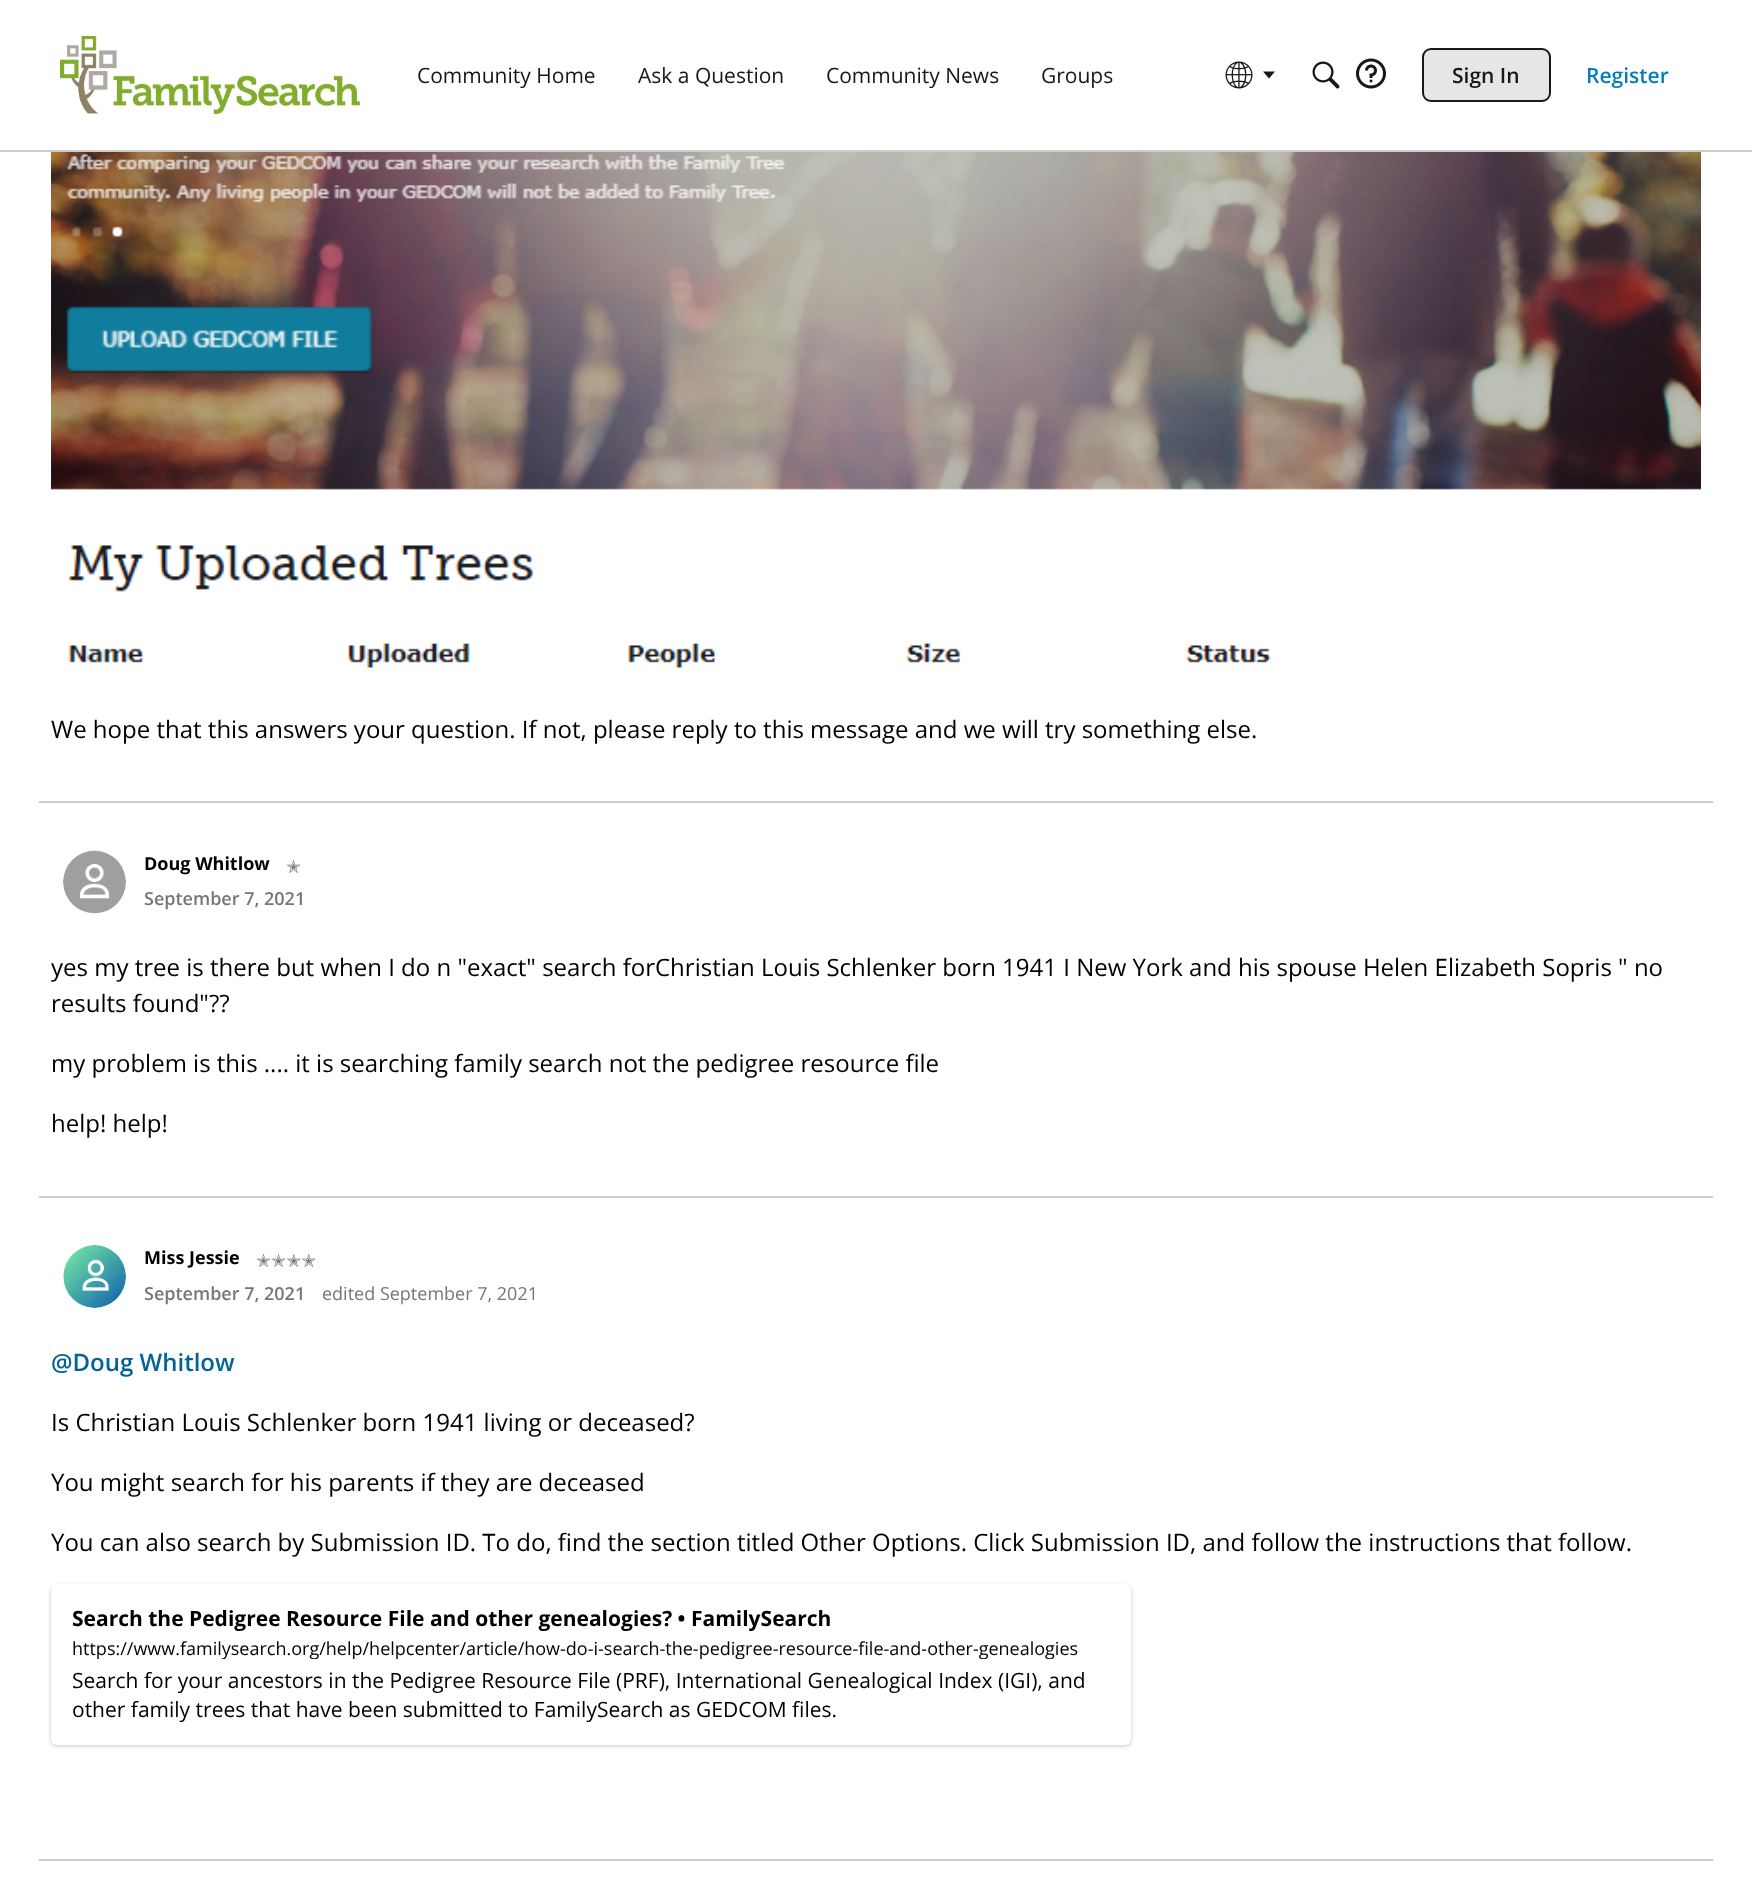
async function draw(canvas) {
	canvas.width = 1752;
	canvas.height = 1890;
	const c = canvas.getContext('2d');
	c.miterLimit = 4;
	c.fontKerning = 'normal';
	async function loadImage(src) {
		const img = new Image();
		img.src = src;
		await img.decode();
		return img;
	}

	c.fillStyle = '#fff';
	c.fillRect(0, 0, 1752, 1890);
	c.fillStyle = '#ccc';
	c.fillRect(0, 150, 1752, 2);
	c.drawImage(await loadImage('img1.png'), 60, 36, 300, 78);
	c.font = '21px Open Sans';
	c.fillStyle = '#17171e';
	for (const [text, x, y] of [
		['Community Home', 417, 83],
		['Ask a Question', 638, 83],
		['Community News', 826, 83],
		['Groups', 1041, 83],
	]) {
		c.fillText(text, x, y);
	}
	c.drawImage(await loadImage('img2.png'), 1225, 61, 28, 28);
	c.beginPath();
	c.moveTo(1263, 71.5);
	c.lineTo(1275, 71.5);
	c.lineTo(1269, 78.5);
	c.closePath();
	c.fill();
	c.drawImage(await loadImage('img3.png'), 1312, 61, 28, 28);
	c.drawImage(await loadImage('img4.png'), 1356, 58, 30, 31);
	c.fillStyle = '#e6e6e6';
	c.beginPath();
	c.roundRect(1423, 49, 127, 52, 8);
	c.fill();
	c.strokeStyle = '#17171e';
	c.lineWidth = 2;
	c.stroke();
	c.font = '600 21px Open Sans';
	c.fillStyle = '#17171e';
	c.fillText('Sign In', 1452, 83);
	c.fillStyle = '#037dbc';
	c.fillText('Register', 1586, 83);
	c.drawImage(await loadImage('img5.png'), 51, 152, 1650, 516);
	c.font = '24px Open Sans';
	c.fillStyle = '#000';
	c.fillText('We hope that this answers your question. If not, please reply to this message and we will try something else.', 51, 738);
	c.fillStyle = '#ccc';
	c.fillRect(39, 801, 1674, 2);
	c.drawImage(await loadImage('img6.png'), 63, 850, 63, 64);
	c.font = 'bold 18px Open Sans';
	c.fillStyle = '#000';
	c.fillText('Doug Whitlow', 144, 870);
	c.font = '18px DejaVu Sans';
	c.fillStyle = '#767676';
	c.fillText('✭', 286, 873);
	c.font = '600 18px Open Sans';
	c.fillText('September 7, 2021', 144, 905);
	c.font = '24px Open Sans';
	c.fillStyle = '#000';
	for (const [text, x, y] of [
		['yes my tree is there but when I do n "exact" search forChristian Louis Schlenker born 1941 I New York and his spouse Helen Elizabeth Sopris " no', 51, 976],
		['results found"??', 51, 1012],
		['my problem is this .... it is searching family search not the pedigree resource file', 51, 1072],
		['help! help!', 51, 1132],
	]) {
		c.fillText(text, x, y);
	}
	c.fillStyle = '#ccc';
	c.fillRect(39, 1196, 1674, 2);
	c.drawImage(await loadImage('img7.png'), 63, 1245, 63, 63);
	c.font = 'bold 18px Open Sans';
	c.fillStyle = '#000';
	c.fillText('Miss Jessie', 144, 1264);
	c.font = '18px DejaVu Sans';
	c.fillStyle = '#767676';
	c.fillText('✭✭✭✭', 256, 1267);
	c.font = '600 18px Open Sans';
	c.fillText('September 7, 2021', 144, 1300);
	c.font = '18px Open Sans';
	c.fillText('edited September 7, 2021', 322, 1300);
	c.font = '600 24px Open Sans';
	c.fillStyle = '#026496';
	c.fillText('@Doug Whitlow', 51, 1371);
	c.font = '24px Open Sans';
	c.fillStyle = '#000';
	for (const [text, x, y] of [
		['Is Christian Louis Schlenker born 1941 living or deceased?', 51, 1431],
		['You might search for his parents if they are deceased', 51, 1491],
		['You can also search by Submission ID. To do, find the section titled Other Options. Click Submission ID, and follow the instructions that follow.', 51, 1551],
	]) {
		c.fillText(text, x, y);
	}
	c.fillStyle = '#00000038';
	c.filter = 'blur(2px)';
	c.beginPath();
	c.roundRect(51, 1586, 1080, 160, 6);
	c.fill();
	c.filter = 'none';
	c.fillStyle = '#fff';
	c.beginPath();
	c.roundRect(51, 1584, 1080, 161, 6);
	c.fill();
	c.font = 'bold 21px Open Sans';
	c.fillStyle = '#000';
	c.fillText('Search the Pedigree Resource File and other genealogies? • FamilySearch', 72, 1626);
	c.save();
	c.beginPath();
	c.rect(72, 1637, 1007, 22);
	c.clip();
	c.font = '18px Open Sans';
	c.fillText('https://www.familysearch.org/help/helpcenter/article/how-do-i-search-the-pedigree-resource-file-and-other-genealogies', 72, 1655);
	c.restore();
	c.font = '21px Open Sans';
	c.fillText('Search for your ancestors in the Pedigree Resource File (PRF), International Genealogical Index (IGI), and', 72, 1688);
	c.fillText('other family trees that have been submitted to FamilySearch as GEDCOM files.', 72, 1717);
	c.fillStyle = '#ccc';
	c.fillRect(39, 1859, 1674, 2);
}

draw(document.querySelector('canvas'));
